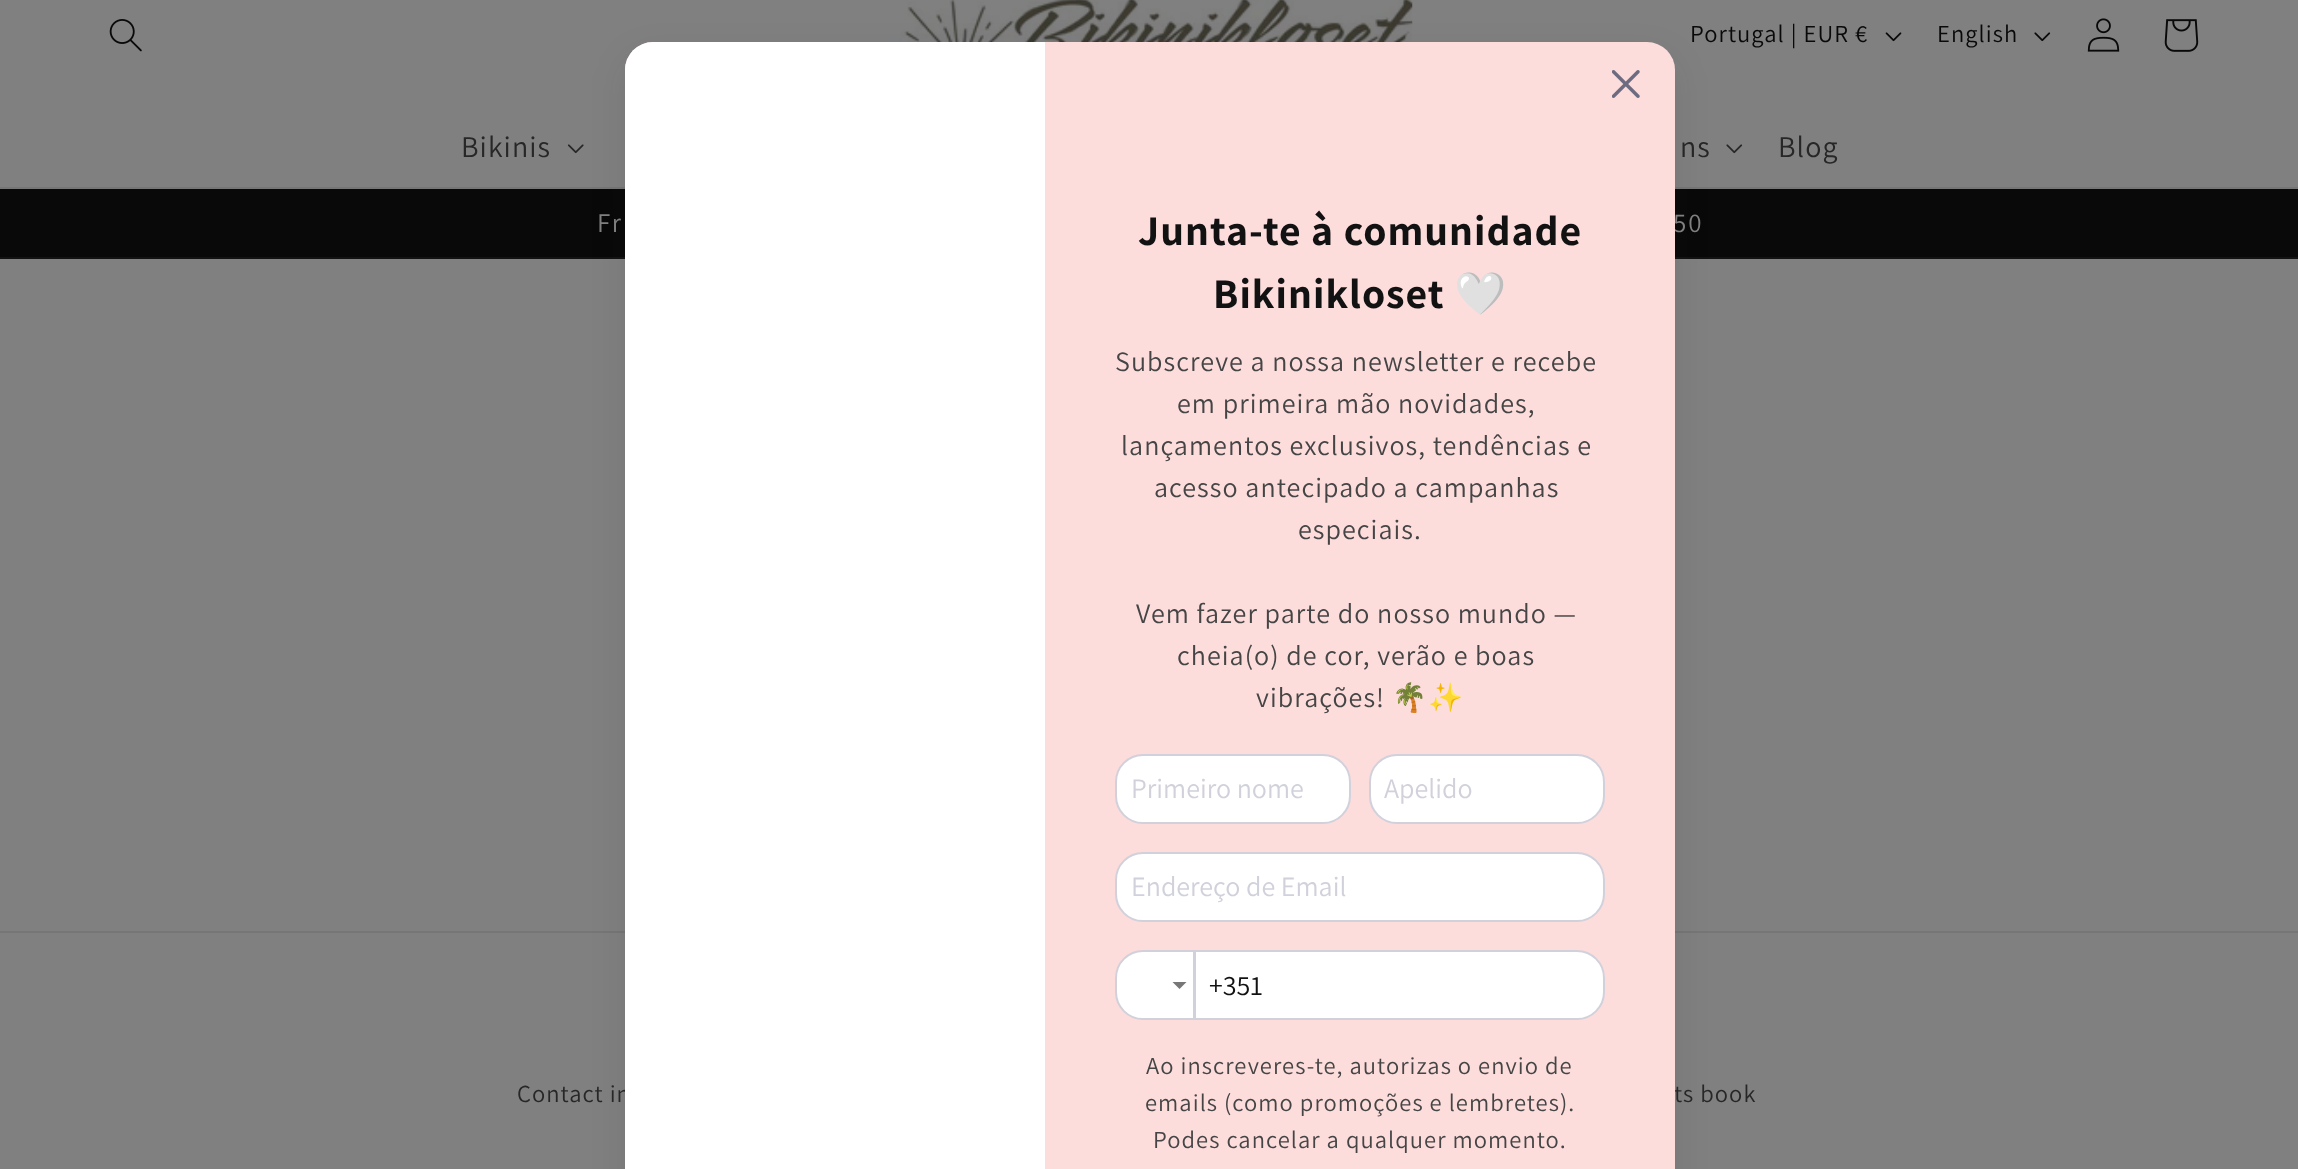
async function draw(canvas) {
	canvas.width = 2298;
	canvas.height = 1169;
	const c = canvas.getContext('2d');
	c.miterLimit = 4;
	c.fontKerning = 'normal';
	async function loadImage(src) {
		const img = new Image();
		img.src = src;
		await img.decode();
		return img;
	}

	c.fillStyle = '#808080';
	c.fillRect(0, 0, 2298, 1169);
	c.fillStyle = '#767676';
	c.fillRect(0, 187, 2298, 2);
	c.drawImage(await loadImage('img1.png'), 109, 19, 33, 33);
	c.drawImage(await loadImage('img2.png'), 887, 0, 526, 42);
	c.letterSpacing = '1.05px';
	c.font = '24.5px Assistant';
	c.fillStyle = '#090909';
	c.fillText('Portugal | EUR €', 1690, 42);
	c.drawImage(await loadImage('img3.png'), 1885, 32, 17, 10);
	c.fillText('English', 1937, 42);
	c.drawImage(await loadImage('img4.png'), 2034, 32, 17, 10);
	c.drawImage(await loadImage('img5.png'), 2087, 18, 33, 34);
	c.drawImage(await loadImage('img6.png'), 2164, 19, 35, 33);
	c.font = '30px Assistant';
	c.fillStyle = '#272727';
	c.fillText('Bikinis', 461, 157);
	c.drawImage(await loadImage('img7.png'), 567, 144, 17, 10);
	c.fillText('ns', 1680, 157);
	c.drawImage(await loadImage('img8.png'), 1726, 144, 17, 10);
	c.fillText('Blog', 1778, 157);
	for (const [x, y, w, h, color] of [
		[0, 189, 2298, 68, '#090909'],
		[0, 257, 2298, 2, '#131313'],
		[0, 931, 2298, 2, '#767676'],
	]) {
		c.fillStyle = color;
		c.fillRect(x, y, w, h);
	}
	c.fillStyle = '#1211271a';
	c.filter = 'blur(17.5px)';
	c.beginPath();
	c.roundRect(625, 56, 1050, 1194, 28);
	c.fill();
	c.filter = 'none';
	c.letterSpacing = '2px';
	c.font = '27px Assistant';
	c.fillStyle = '#808080';
	c.fillText('50', 1673, 232);
	c.letterSpacing = '1.05px';
	c.font = '24.5px Assistant';
	c.fillStyle = '#272727';
	c.fillText('Contact in', 517, 1102);
	c.fillText('ts book', 1674, 1102);
	c.fillStyle = '#fddcdc';
	c.beginPath();
	c.roundRect(625, 42, 1050, 1127, [28, 28, 0, 0]);
	c.fill();
	c.fillStyle = '#fff';
	c.beginPath();
	c.roundRect(625, 42, 420, 1127, [28, 0, 0, 0]);
	c.fill();
	c.drawImage(await loadImage('img9.png'), 1612, 70, 28, 28);
	c.font = 'bold 42px Assistant';
	c.fillStyle = '#121212';
	c.fillText('Junta-te à comunidade', 1138, 245);
	c.fillText('Bikinikloset', 1213, 308);
	c.font = 'bold 42px Noto Color Emoji';
	c.fillText('🤍', 1454, 308);
	c.font = '28px Assistant';
	c.fillStyle = '#454545';
	for (const [text, x, y] of [
		['Subscreve a nossa newsletter e recebe', 1115, 371],
		['em primeira mão novidades,', 1177, 413],
		['lançamentos exclusivos, tendências e', 1121, 455],
		['acesso antecipado a campanhas', 1154, 497],
		['especiais.', 1298, 539],
		['Vem fazer parte do nosso mundo —', 1136, 623],
		['cheia(o) de cor, verão e boas', 1177, 665],
		['vibrações!', 1256, 707],
	]) {
		c.fillText(text, x, y);
	}
	c.font = '28px Noto Color Emoji';
	c.fillText('🌴✨', 1392, 707);
	c.fillStyle = '#fff';
	c.beginPath();
	c.roundRect(1116, 755, 234, 68, 27);
	c.fill();
	c.strokeStyle = '#d1d1db';
	c.lineWidth = 2;
	c.stroke();
	c.letterSpacing = '0px';
	c.font = '28px Assistant';
	c.fillStyle = '#d1d1db';
	c.fillText('Primeiro nome', 1131, 798);
	c.fillStyle = '#fff';
	c.beginPath();
	c.roundRect(1370, 755, 234, 68, 27);
	c.fill();
	c.stroke();
	c.fillStyle = '#d1d1db';
	c.fillText('Apelido', 1384, 798);
	c.fillStyle = '#fff';
	c.beginPath();
	c.roundRect(1116, 853, 488, 68, 27);
	c.fill();
	c.stroke();
	c.fillStyle = '#d1d1db';
	c.fillText('Endereço de Email', 1131, 896);
	c.fillStyle = '#fff';
	c.beginPath();
	c.roundRect(1195, 951, 409, 68, [0, 27, 27, 0]);
	c.fill();
	c.stroke();
	c.beginPath();
	c.roundRect(1116, 951, 78, 68, [27, 0, 0, 27]);
	c.fill();
	c.stroke();
	c.fillStyle = '#777';
	c.beginPath();
	c.moveTo(1172.5, 982);
	c.lineTo(1186.5, 982);
	c.lineTo(1179.5, 989);
	c.closePath();
	c.fill();
	c.fillStyle = '#121212';
	c.fillText('+351', 1209, 995);
	c.letterSpacing = '1.05px';
	c.font = '24.5px Assistant';
	c.fillStyle = '#454545';
	for (const [text, x, y] of [
		['Ao inscreveres-te, autorizas o envio de', 1146, 1074],
		['emails (como promoções e lembretes).', 1145, 1111],
		['Podes cancelar a qualquer momento.', 1153, 1148],
	]) {
		c.fillText(text, x, y);
	}
	c.letterSpacing = '2px';
	c.font = '27px Assistant';
	c.fillStyle = '#808080';
	c.fillText('Fr', 597, 232);
}

draw(document.querySelector('canvas'));
